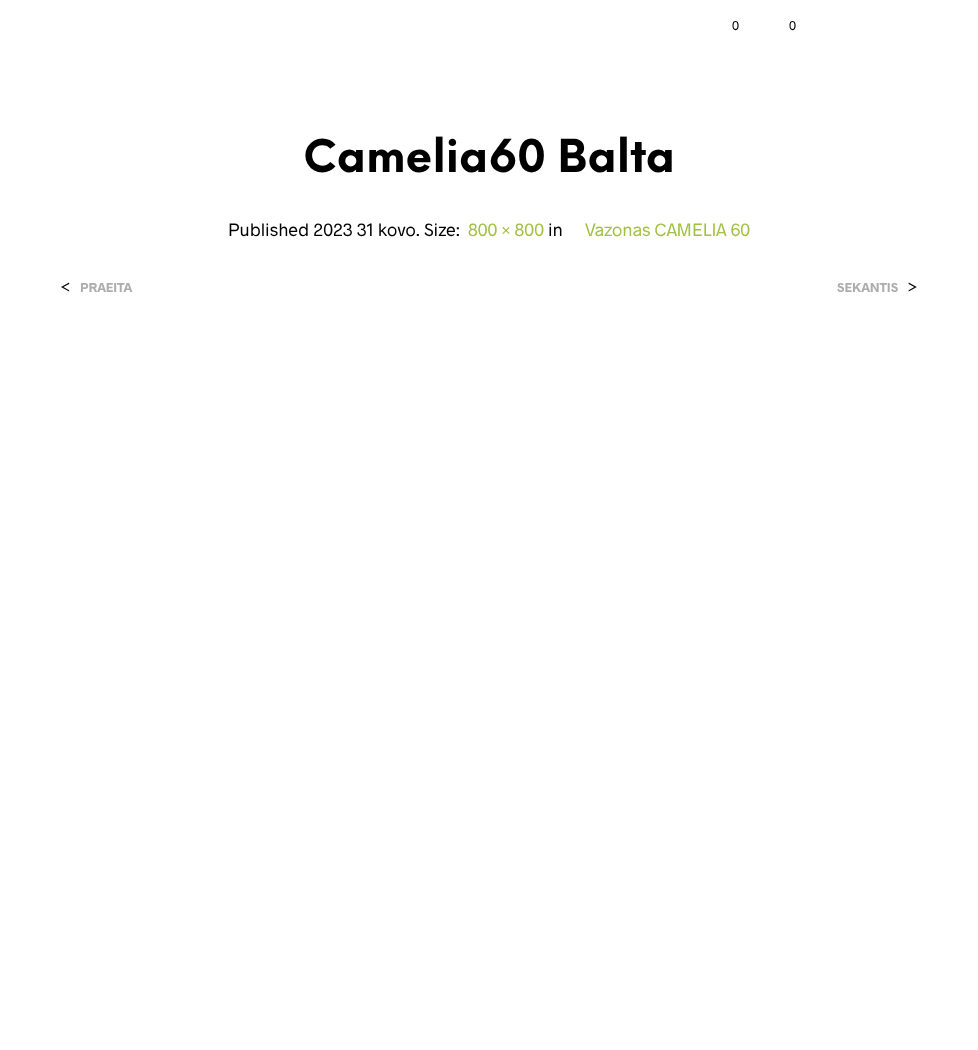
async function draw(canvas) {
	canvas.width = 978;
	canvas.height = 1050;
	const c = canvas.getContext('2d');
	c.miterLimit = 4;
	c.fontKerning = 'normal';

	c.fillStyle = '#fff';
	c.fillRect(0, 0, 978, 1050);
	c.font = '13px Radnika';
	c.fillStyle = '#000';
	c.fillText('0', 732, 30);
	c.fillText('0', 789, 30);
	c.font = 'bold 44.25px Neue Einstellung';
	c.fillText('Camelia60 Balta', 303, 172);
	c.font = '18px Radnika';
	c.fillText('Published 2023 31 kovo. Size:', 228, 236);
	c.fillStyle = '#a2c046';
	c.fillText('800 × 800', 468, 236);
	c.fillStyle = '#000';
	c.fillText('in', 548, 236);
	c.fillStyle = '#a2c046';
	c.fillText('Vazonas CAMELIA 60', 585, 236);
	c.fillStyle = '#000';
	c.fillText('<', 60, 293);
	c.font = 'bold 13px Radnika';
	c.fillStyle = '#adadad';
	c.fillText('PRAEITA', 80, 292);
	c.fillText('SEKANTIS', 837, 292);
	c.font = '18px Radnika';
	c.fillStyle = '#000';
	c.fillText('>', 907, 293);
}

draw(document.querySelector('canvas'));
